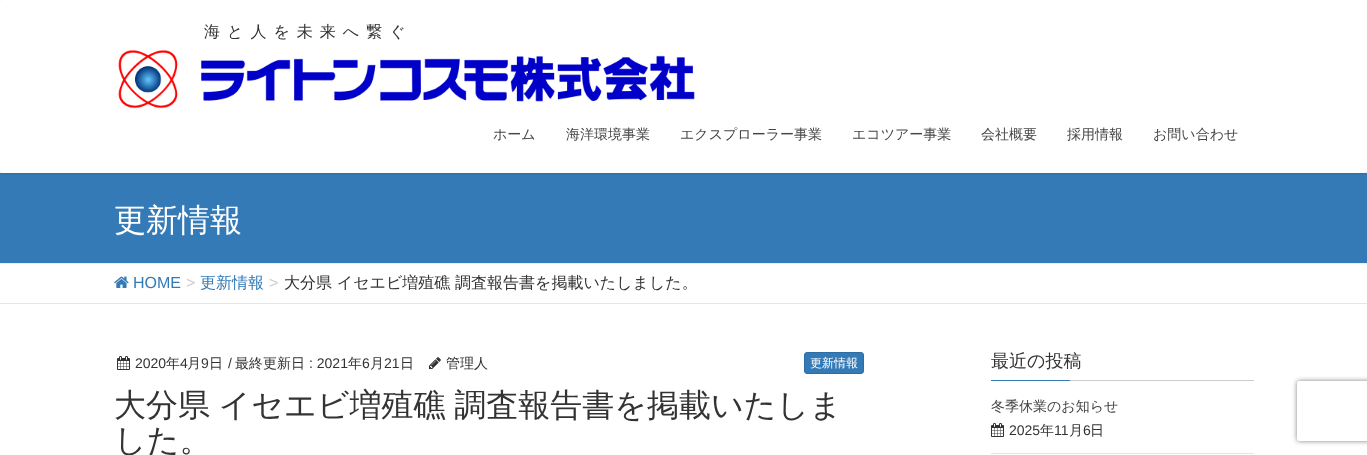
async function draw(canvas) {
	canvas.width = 1367;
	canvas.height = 455;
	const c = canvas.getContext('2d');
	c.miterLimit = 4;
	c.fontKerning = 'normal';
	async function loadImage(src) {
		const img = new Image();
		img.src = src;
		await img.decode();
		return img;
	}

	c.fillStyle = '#fff';
	c.fillRect(0, 0, 1367, 455);
	c.fillStyle = '#337ab7';
	c.fillRect(0, 173, 1367, 90);
	c.fillStyle = '#0000001a';
	c.filter = 'blur(1.5px)';
	c.beginPath();
	c.roundRect(0, 1, 1367, 173, 4);
	c.fill();
	c.filter = 'none';
	c.fillStyle = '#fff';
	c.beginPath();
	c.roundRect(0, 0, 1367, 173, 4);
	c.fill();
	c.letterSpacing = '7px';
	c.font = '500 16px WenQuanYi Zen Hei';
	c.fillStyle = '#333';
	c.fillText('海と人を未来へ繋ぐ', 204, 37);
	c.drawImage(await loadImage('img1.png'), 118, 50, 577, 59);
	c.letterSpacing = '0px';
	c.font = '500 14px WenQuanYi Zen Hei';
	c.fillStyle = '#464646';
	for (const [text, x, y] of [
		['ホーム', 493, 139],
		['海洋環境事業', 566, 139],
		['エクスプローラー事業', 680, 139],
		['エコツアー事業', 852, 139],
		['会社概要', 981, 139],
		['採用情報', 1067, 139],
		['お問い合わせ', 1153, 139],
	]) {
		c.fillText(text, x, y);
	}
	c.fillStyle = '#eee';
	c.fillRect(0, 263, 1367, 1);
	c.font = '500 32px WenQuanYi Zen Hei';
	c.fillStyle = '#fff';
	c.fillText('更新情報', 114, 231);
	c.fillStyle = '#e5e5e5';
	c.fillRect(0, 303, 1367, 1);
	c.drawImage(await loadImage('img2.png'), 114, 276, 15, 12);
	c.font = '16px Liberation Sans';
	c.fillStyle = '#337ab7';
	c.fillText('HOME', 133, 288);
	c.fillStyle = '#ccc';
	c.fillText('>', 186, 288);
	c.font = '500 16px WenQuanYi Zen Hei';
	c.fillStyle = '#337ab7';
	c.fillText('更新情報', 200, 288);
	c.font = '16px Liberation Sans';
	c.fillStyle = '#ccc';
	c.fillText('>', 269, 288);
	c.font = '500 16px WenQuanYi Zen Hei';
	c.fillStyle = '#333';
	c.fillText('大分県 イセエビ増殖礁 調査報告書を掲載いたしました。', 284, 288);
	c.drawImage(await loadImage('img3.png'), 117, 356, 13, 14);
	c.font = '14px Liberation Sans';
	c.fillText('2020', 135, 368);
	c.font = '500 14px WenQuanYi Zen Hei';
	c.fillText('年', 166, 368);
	c.font = '14px Liberation Sans';
	c.fillText('4', 180, 368);
	c.font = '500 14px WenQuanYi Zen Hei';
	c.fillText('月', 187, 368);
	c.font = '14px Liberation Sans';
	c.fillText('9', 201, 368);
	c.font = '500 14px WenQuanYi Zen Hei';
	c.fillText('日', 209, 368);
	c.font = '14px Liberation Sans';
	c.fillText('/', 228, 368);
	c.font = '500 14px WenQuanYi Zen Hei';
	c.fillText('最終更新日', 235, 368);
	c.font = '14px Liberation Sans';
	c.fillText(': 2021', 309, 368);
	c.font = '500 14px WenQuanYi Zen Hei';
	c.fillText('年', 348, 368);
	c.font = '14px Liberation Sans';
	c.fillText('6', 362, 368);
	c.font = '500 14px WenQuanYi Zen Hei';
	c.fillText('月', 370, 368);
	c.font = '14px Liberation Sans';
	c.fillText('21', 384, 368);
	c.font = '500 14px WenQuanYi Zen Hei';
	c.fillText('日', 400, 368);
	c.drawImage(await loadImage('img4.png'), 429, 357, 12, 12);
	c.fillText('管理人', 446, 368);
	c.fillStyle = '#337ab7';
	c.beginPath();
	c.roundRect(804.5, 352.5, 59, 21, 2.5);
	c.fill();
	c.strokeStyle = '#2e6da4';
	c.stroke();
	c.font = '500 12px WenQuanYi Zen Hei';
	c.fillStyle = '#fff';
	c.fillText('更新情報', 810, 367);
	c.wordSpacing = '-1px';
	c.font = '500 32px WenQuanYi Zen Hei';
	c.fillStyle = '#333';
	c.fillText('大分県 イセエビ増殖礁 調査報告書を掲載いたしま', 114, 416);
	c.wordSpacing = '0px';
	c.fillText('した。', 114, 451);
	c.fillStyle = '#ccc';
	c.fillRect(1070, 380, 184, 1);
	c.font = '500 18px WenQuanYi Zen Hei';
	c.fillStyle = '#333';
	c.fillText('最近の投稿', 991, 367);
	c.fillStyle = '#337ab7';
	c.fillRect(991, 380, 79, 1);
	c.fillStyle = '#e5e5e5';
	c.fillRect(991, 453, 263, 1);
	c.font = '500 14px WenQuanYi Zen Hei';
	c.fillStyle = '#464646';
	c.fillText('冬季休業のお知らせ', 991, 411);
	c.drawImage(await loadImage('img3.png'), 991, 423, 13, 14);
	c.font = '14px Liberation Sans';
	c.fillStyle = '#333';
	c.fillText('2025', 1009, 435);
	c.font = '500 14px WenQuanYi Zen Hei';
	c.fillText('年', 1040, 435);
	c.font = '14px Liberation Sans';
	c.fillText('11', 1054, 435);
	c.font = '500 14px WenQuanYi Zen Hei';
	c.fillText('月', 1069, 435);
	c.font = '14px Liberation Sans';
	c.fillText('6', 1083, 435);
	c.font = '500 14px WenQuanYi Zen Hei';
	c.fillText('日', 1090, 435);
	c.save();
	c.beginPath();
	c.moveTo(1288, 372);
	c.lineTo(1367, 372);
	c.lineTo(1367, 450);
	c.lineTo(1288, 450);
	c.closePath();
	c.moveTo(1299, 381);
	c.lineTo(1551, 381);
	c.bezierCurveTo(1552, 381, 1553, 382, 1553, 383);
	c.lineTo(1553, 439);
	c.bezierCurveTo(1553, 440, 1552, 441, 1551, 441);
	c.lineTo(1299, 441);
	c.bezierCurveTo(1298, 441, 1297, 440, 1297, 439);
	c.lineTo(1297, 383);
	c.bezierCurveTo(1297, 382, 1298, 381, 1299, 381);
	c.closePath();
	c.clip('evenodd');
	c.fillStyle = '#808080';
	c.filter = 'blur(2.5px)';
	c.beginPath();
	c.roundRect(1297, 381, 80, 60, 2);
	c.fill();
	c.filter = 'none';
	c.restore();
}

draw(document.querySelector('canvas'));
